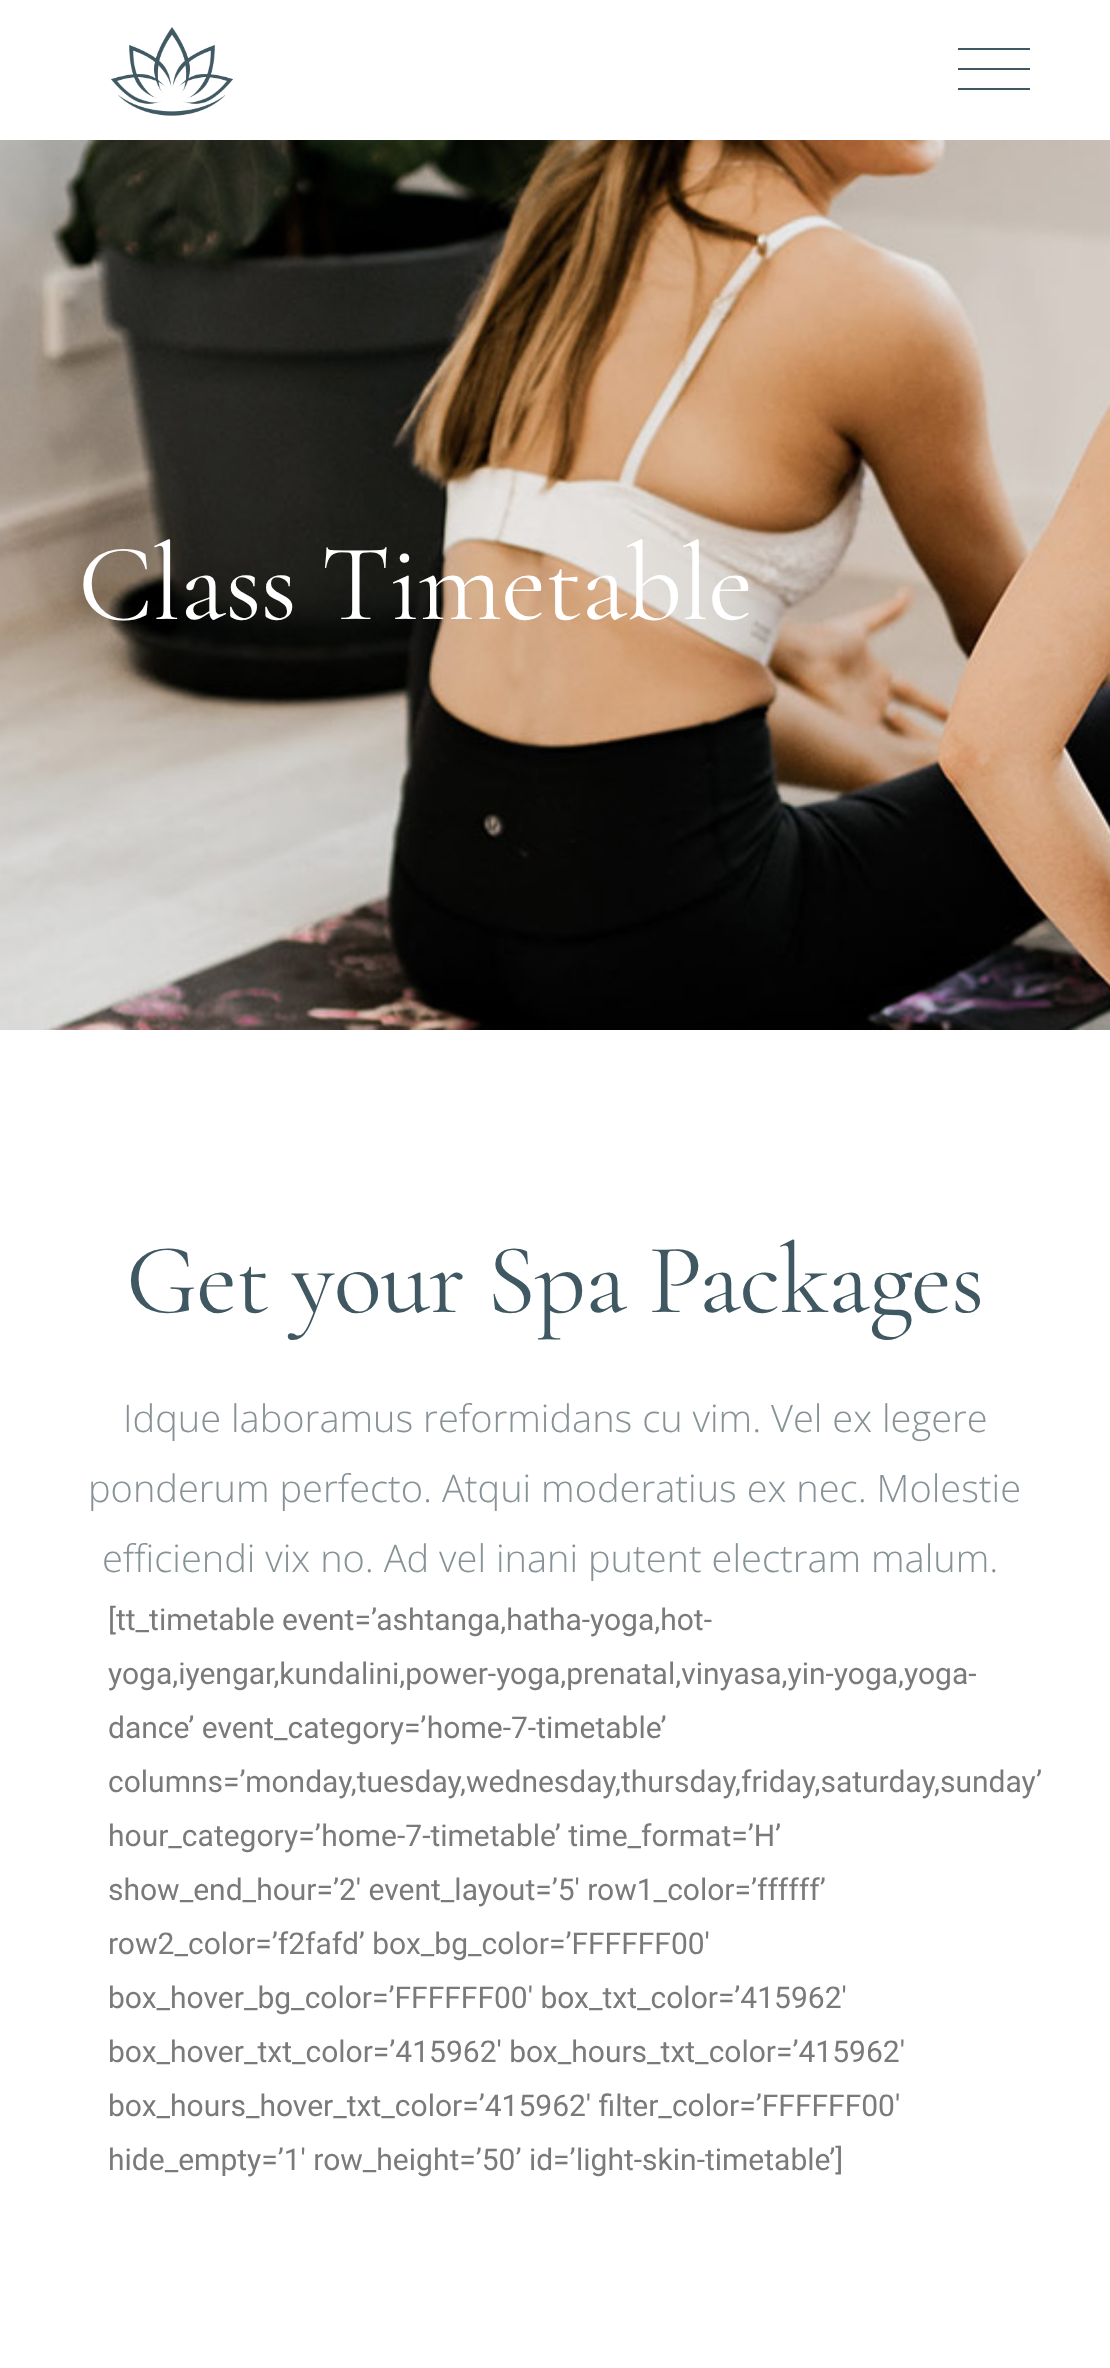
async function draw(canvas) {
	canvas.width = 1110;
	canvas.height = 2368;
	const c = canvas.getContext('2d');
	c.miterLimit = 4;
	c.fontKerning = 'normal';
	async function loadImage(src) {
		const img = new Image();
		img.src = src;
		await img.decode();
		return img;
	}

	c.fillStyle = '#fff';
	c.fillRect(0, 0, 1110, 2368);
	c.drawImage(await loadImage('img1.png'), 111, 27, 122, 89);
	for (const [x, y, w, h, color] of [
		[958, 48, 72, 2, '#405861'],
		[958, 68, 72, 2, '#405861'],
		[958, 88, 72, 2, '#405861'],
	]) {
		c.fillStyle = color;
		c.fillRect(x, y, w, h);
	}
	c.drawImage(await loadImage('img2.png'), 0, 140, 1110, 890);
	c.letterSpacing = '-1.1px';
	c.font = '110px Cormorant Garamond';
	c.fillStyle = '#fff';
	c.fillText('Class Timetable', 78, 619);
	c.letterSpacing = '-1px';
	c.font = '100px Cormorant Garamond';
	c.fillStyle = '#405861';
	c.fillText('Get your Spa Packages', 126, 1312);
	c.letterSpacing = '0px';
	c.font = '300 38px Open Sans';
	c.fillStyle = '#879296';
	for (const [text, x, y] of [
		['Idque laboramus reformidans cu vim. Vel ex legere', 123, 1432],
		['ponderum perfecto. Atqui moderatius ex nec. Molestie', 88, 1502],
		['efficiendi vix no. Ad vel inani putent electram malum.', 102, 1572],
	]) {
		c.fillText(text, x, y);
	}
	c.font = '30px Roboto';
	c.fillStyle = '#7a7a7a';
	for (const [text, x, y] of [
		['[tt_timetable event=’ashtanga,hatha-yoga,hot-', 108, 1630],
		['yoga,iyengar,kundalini,power-yoga,prenatal,vinyasa,yin-yoga,yoga-', 108, 1684],
		['dance’ event_category=’home-7-timetable’', 108, 1738],
		['columns=’monday,tuesday,wednesday,thursday,friday,saturday,sunday’', 108, 1792],
		['hour_category=’home-7-timetable’ time_format=’H’', 108, 1846],
		['show_end_hour=’2′ event_layout=’5′ row1_color=’ffffff’', 108, 1900],
		['row2_color=’f2fafd’ box_bg_color=’FFFFFF00′', 108, 1954],
		['box_hover_bg_color=’FFFFFF00′ box_txt_color=’415962′', 108, 2008],
		['box_hover_txt_color=’415962′ box_hours_txt_color=’415962′', 108, 2062],
		['box_hours_hover_txt_color=’415962′ filter_color=’FFFFFF00′', 108, 2116],
		['hide_empty=’1′ row_height=’50’ id=’light-skin-timetable’]', 108, 2170],
	]) {
		c.fillText(text, x, y);
	}
}

draw(document.querySelector('canvas'));
